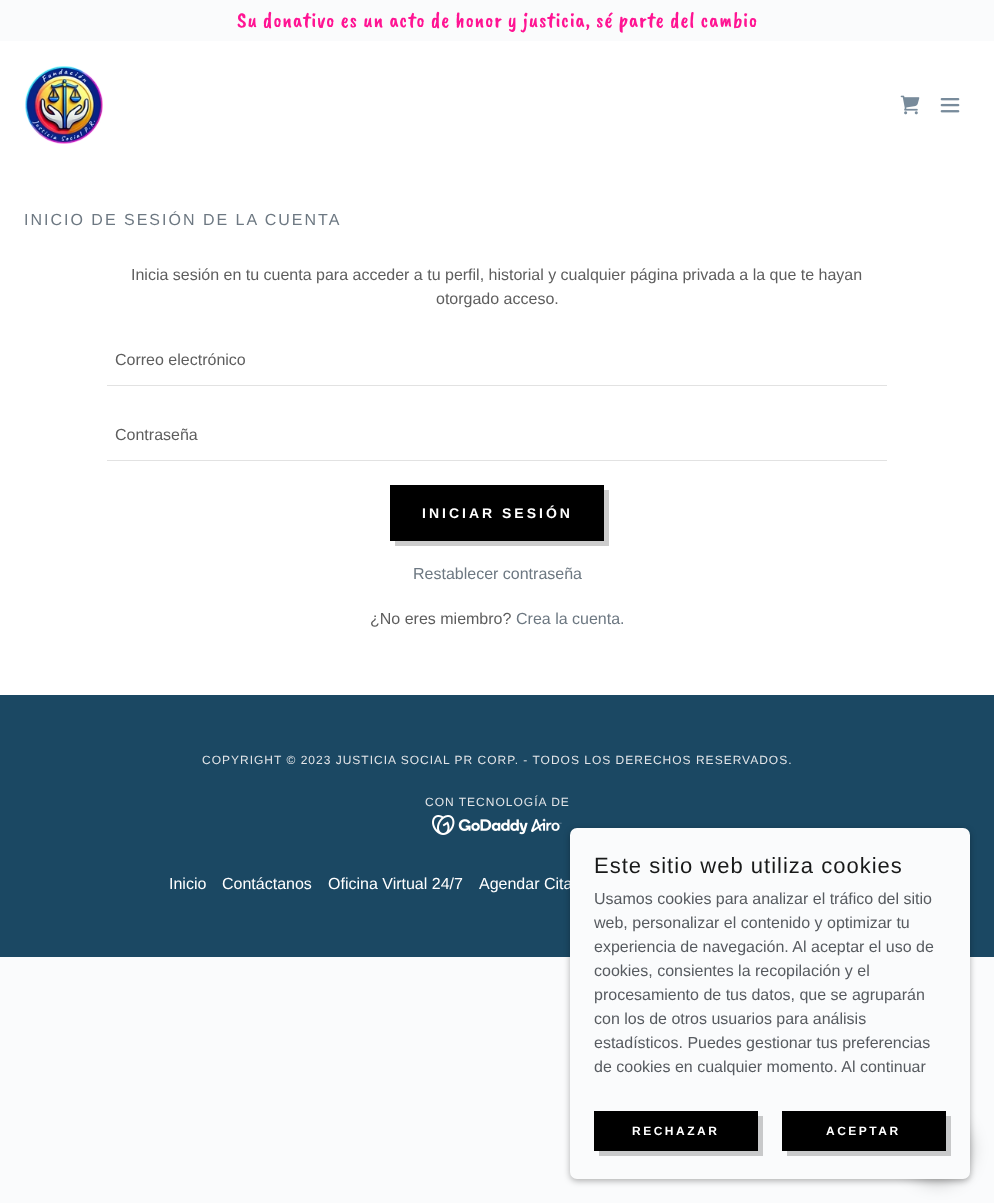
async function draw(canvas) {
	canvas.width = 994;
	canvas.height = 1203;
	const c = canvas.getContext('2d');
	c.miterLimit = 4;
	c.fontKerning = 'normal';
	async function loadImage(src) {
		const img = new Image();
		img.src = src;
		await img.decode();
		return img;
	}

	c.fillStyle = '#fafbfc';
	c.fillRect(0, 0, 994, 1203);
	c.fillStyle = '#fff';
	c.fillRect(0, 41, 994, 654);
	c.letterSpacing = '0.68px';
	c.font = '22px Caveat Brush';
	c.fillStyle = '#ff1493';
	c.fillText('Su donativo es un acto de honor y justicia, sé parte del cambio', 237, 27);
	c.drawImage(await loadImage('img1.png'), 25, 66, 78, 78);
	c.drawImage(await loadImage('img2.png'), 900, 95, 20, 20);
	c.drawImage(await loadImage('img3.png'), 940, 98, 20, 15);
	c.letterSpacing = '2px';
	c.font = '16px Liberation Sans';
	c.fillStyle = '#6d7882';
	c.fillText('INICIO DE SESIÓN DE LA CUENTA', 24, 225);
	c.letterSpacing = '0px';
	c.fillStyle = '#5e5e5e';
	c.fillText('Inicia sesión en tu cuenta para acceder a tu perfil, historial y cualquier página privada a la que te hayan', 131, 280);
	c.fillText('otorgado acceso.', 436, 304);
	c.fillStyle = '#e2e2e2';
	c.fillRect(107, 385, 780, 1);
	c.fillStyle = '#5e5e5e';
	c.fillText('Correo electrónico', 115, 365);
	c.fillStyle = '#e2e2e2';
	c.fillRect(107, 460, 780, 1);
	c.fillStyle = '#5e5e5e';
	c.fillText('Contraseña', 115, 440);
	c.fillStyle = '#000';
	c.fillRect(390, 485, 214, 56);
	c.fillStyle = '#ccc';
	c.beginPath();
	c.moveTo(395, 541);
	c.lineTo(395, 546);
	c.lineTo(609, 546);
	c.lineTo(609, 490);
	c.lineTo(604, 490);
	c.lineTo(604, 541);
	c.closePath();
	c.fill();
	c.letterSpacing = '3px';
	c.font = 'bold 14px Liberation Sans';
	c.fillStyle = '#fff';
	c.fillText('INICIAR SESIÓN', 422, 518);
	c.letterSpacing = '0px';
	c.font = '16px Liberation Sans';
	c.fillStyle = '#6d7882';
	c.fillText('Restablecer contraseña', 413, 579);
	c.fillStyle = '#5e5e5e';
	c.fillText('¿No eres miembro?', 370, 624);
	c.fillStyle = '#6d7882';
	c.fillText('Crea la cuenta.', 516, 624);
	c.fillStyle = '#1b4863';
	c.fillRect(0, 695, 994, 262);
	c.letterSpacing = '1px';
	c.font = '12px Liberation Sans';
	c.fillStyle = '#e3e5e8';
	c.fillText('COPYRIGHT © 2023 JUSTICIA SOCIAL PR CORP. - TODOS LOS DERECHOS RESERVADOS.', 202, 764);
	c.fillText('CON TECNOLOGÍA DE', 425, 806);
	c.drawImage(await loadImage('img4.png'), 432, 815, 130, 20);
	c.letterSpacing = '0px';
	c.font = '16px Liberation Sans';
	c.fillStyle = '#fff';
	for (const [text, x, y] of [
		['Inicio', 169, 889],
		['Contáctanos', 222, 889],
		['Oficina Virtual 24/7', 328, 889],
		['Agendar Cita', 479, 889],
	]) {
		c.fillText(text, x, y);
	}
	c.fillStyle = '#0000004d';
	c.filter = 'blur(3px)';
	c.beginPath();
	c.roundRect(570, 830, 400, 351, 7);
	c.fill();
	c.filter = 'none';
	c.fillStyle = '#00000040';
	c.filter = 'blur(9px)';
	c.beginPath();
	c.roundRect(905, 1117, 65, 65, 32.5);
	c.fill();
	c.filter = 'none';
	c.fillStyle = '#fafbfc';
	c.beginPath();
	c.roundRect(570, 828, 400, 351, 7);
	c.fill();
	c.letterSpacing = '1px';
	c.font = '22px Liberation Sans';
	c.fillStyle = '#181919';
	c.fillText('Este sitio web utiliza cookies', 594, 873);
	c.letterSpacing = '0px';
	c.font = '16px Liberation Sans';
	c.fillStyle = '#575b60';
	for (const [text, x, y] of [
		['Usamos cookies para analizar el tráfico del sitio', 594, 904],
		['web, personalizar el contenido y optimizar tu', 594, 928],
		['experiencia de navegación. Al aceptar el uso de', 594, 952],
		['cookies, consientes la recopilación y el', 594, 976],
		['procesamiento de tus datos, que se agruparán', 594, 1000],
		['con los de otros usuarios para análisis', 594, 1024],
		['estadísticos. Puedes gestionar tus preferencias', 594, 1048],
		['de cookies en cualquier momento. Al continuar', 594, 1072],
	]) {
		c.fillText(text, x, y);
	}
	c.fillStyle = '#000';
	c.fillRect(594, 1111, 164, 40);
	c.fillStyle = '#c8c9ca';
	c.beginPath();
	c.moveTo(599, 1151);
	c.lineTo(599, 1156);
	c.lineTo(763, 1156);
	c.lineTo(763, 1116);
	c.lineTo(758, 1116);
	c.lineTo(758, 1151);
	c.closePath();
	c.fill();
	c.letterSpacing = '2.5px';
	c.font = 'bold 12px Liberation Sans';
	c.fillStyle = '#fff';
	c.fillText('RECHAZAR', 632, 1135);
	c.fillStyle = '#000';
	c.fillRect(782, 1111, 164, 40);
	c.fillStyle = '#c8c9ca';
	c.beginPath();
	c.moveTo(787, 1151);
	c.lineTo(787, 1156);
	c.lineTo(951, 1156);
	c.lineTo(951, 1116);
	c.lineTo(946, 1116);
	c.lineTo(946, 1151);
	c.closePath();
	c.fill();
	c.fillStyle = '#fff';
	c.fillText('ACEPTAR', 826, 1135);
}

draw(document.querySelector('canvas'));
